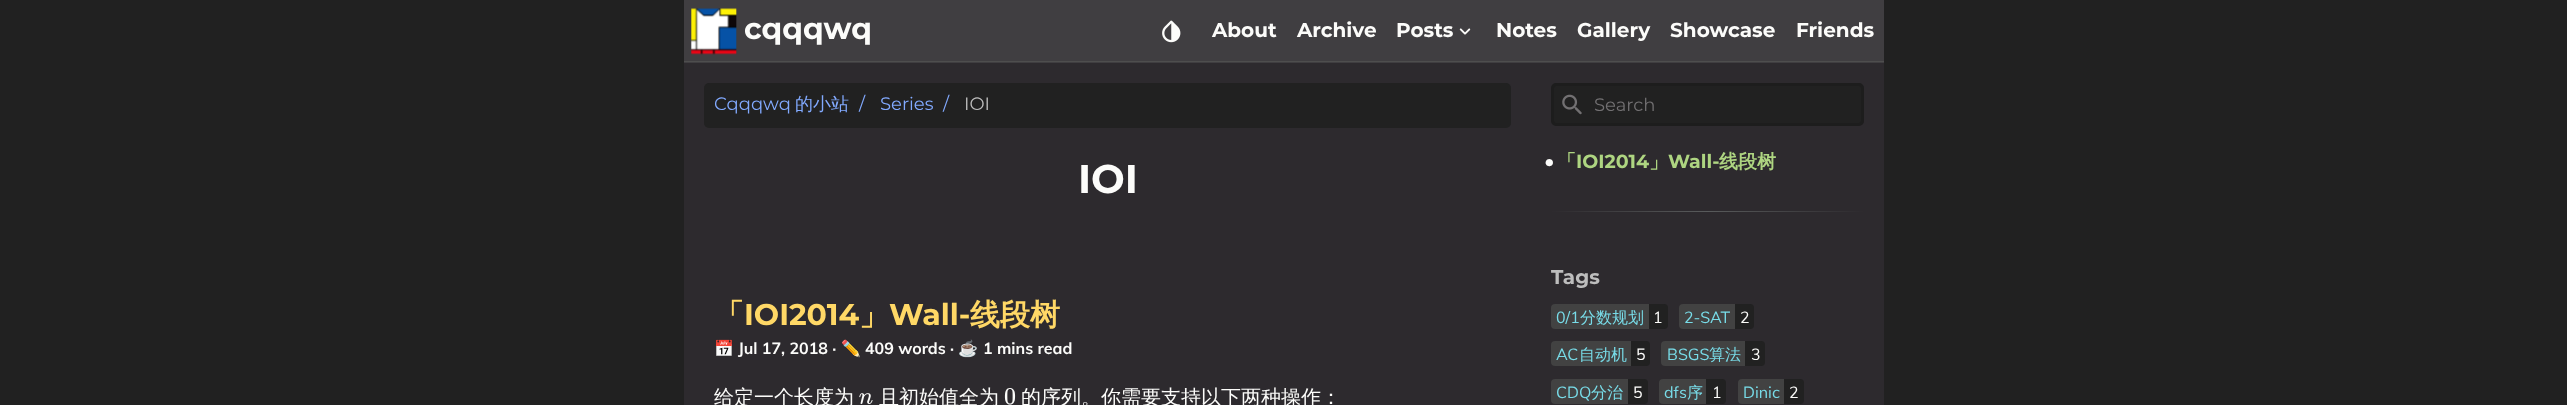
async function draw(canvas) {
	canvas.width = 2567;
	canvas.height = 405;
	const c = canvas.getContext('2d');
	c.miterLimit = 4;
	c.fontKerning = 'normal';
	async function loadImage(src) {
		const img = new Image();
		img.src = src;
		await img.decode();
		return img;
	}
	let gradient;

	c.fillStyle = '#212121';
	c.fillRect(0, 0, 2567, 405);
	for (const [x, y, w, h, color] of [
		[684, 63, 1200, 342, '#2d2a2e'],
		[684, 0, 1200, 63, '#403e41'],
		[684, 61, 1200, 1, '#4e4e4e'],
	]) {
		c.fillStyle = color;
		c.fillRect(x, y, w, h);
	}
	c.drawImage(await loadImage('img1.png'), 691, 8, 46, 47);
	c.font = 'bold 30px Montserrat';
	c.fillStyle = '#fcfcfa';
	c.fillText('cqqqwq', 744, 39);
	c.drawImage(await loadImage('img2.png'), 1162, 20, 19, 23);
	c.font = 'bold 20px Montserrat';
	for (const [text, x, y] of [
		['About', 1212, 37],
		['Archive', 1297, 37],
		['Posts', 1396, 37],
	]) {
		c.fillText(text, x, y);
	}
	c.drawImage(await loadImage('img3.png'), 1459, 28, 12, 7);
	for (const [text, x, y] of [
		['Notes', 1496, 37],
		['Gallery', 1577, 37],
		['Showcase', 1670, 37],
		['Friends', 1796, 37],
	]) {
		c.fillText(text, x, y);
	}
	c.fillStyle = '#212121';
	c.beginPath();
	c.roundRect(704, 83, 807, 45, 5);
	c.fill();
	c.font = '18px Montserrat';
	c.fillStyle = '#82aaff';
	c.fillText('Cqqqwq', 714, 110);
	c.font = '500 18px WenQuanYi Zen Hei';
	c.fillText('的小站', 795, 110);
	c.font = '18px Montserrat';
	for (const [text, x, y] of [
		['/', 859, 110],
		['Series', 880, 110],
		['/', 943, 110],
	]) {
		c.fillText(text, x, y);
	}
	c.fillStyle = '#bdbdbd';
	c.fillText('IOI', 964, 110);
	c.font = 'bold 40px Montserrat';
	c.fillStyle = '#fcfcfa';
	c.fillText('IOI', 1078, 193);
	c.font = 'bold 30px WenQuanYi Zen Hei';
	c.fillStyle = '#ffd866';
	c.fillText('「', 714, 325);
	c.font = 'bold 30px Montserrat';
	c.fillText('IOI2014', 744, 325);
	c.font = 'bold 30px WenQuanYi Zen Hei';
	c.fillText('」', 859, 325);
	c.font = 'bold 30px Montserrat';
	c.fillText('Wall-', 889, 325);
	c.font = 'bold 30px WenQuanYi Zen Hei';
	c.fillText('线段树', 970, 325);
	c.font = 'bold 16px Noto Color Emoji';
	c.fillStyle = '#fcfcfa';
	c.fillText('📅', 714, 354);
	c.font = 'bold 16px Muli';
	c.fillText('Jul 17, 2018 ·', 738, 354);
	c.font = 'bold 16px Noto Color Emoji';
	c.fillText('✏️', 841, 354);
	c.font = 'bold 16px Muli';
	c.fillText('409 words ·', 865, 354);
	c.font = 'bold 16px Noto Color Emoji';
	c.fillText('☕', 958, 354);
	c.font = 'bold 16px Muli';
	c.fillText('1 mins read', 983, 354);
	c.font = '500 20px WenQuanYi Zen Hei';
	c.fillText('给定一个长度为', 714, 404);
	c.drawImage(await loadImage('img4.png'), 859, 393, 14, 11);
	c.fillText('且初始值全为', 879, 404);
	c.font = '24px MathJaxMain';
	c.fillText('0', 1004, 404);
	c.font = '500 20px WenQuanYi Zen Hei';
	c.fillText('的序列。你需要支持以下两种操作：', 1021, 404);
	c.fillStyle = '#212121';
	c.beginPath();
	c.roundRect(1552.5, 84.5, 310, 40, 3.5);
	c.fill();
	c.strokeStyle = '#1d1d1d';
	c.lineWidth = 3;
	c.stroke();
	c.drawImage(await loadImage('img5.png'), 1562, 94, 20, 21);
	c.font = '18px Montserrat';
	c.fillStyle = '#727072';
	c.fillText('Search', 1594, 111);
	c.font = '20px Muli';
	c.fillStyle = '#fcfcfa';
	c.fillText('•', 1544, 168);
	c.font = 'bold 19px WenQuanYi Zen Hei';
	c.fillStyle = '#aed581';
	c.fillText('「', 1557, 168);
	c.font = 'bold 19px Montserrat';
	c.fillText('IOI2014', 1576, 168);
	c.font = 'bold 19px WenQuanYi Zen Hei';
	c.fillText('」', 1649, 168);
	c.font = 'bold 19px Montserrat';
	c.fillText('Wall-', 1668, 168);
	c.font = 'bold 19px WenQuanYi Zen Hei';
	c.fillText('线段树', 1719, 168);
	gradient = c.createLinearGradient(1551, 212, 1864, 212);
	gradient.addColorStop(0, '#2d2a2e');
	gradient.addColorStop(0.5, '#595b5c');
	gradient.addColorStop(1, '#2d2a2e');
	c.fillStyle = gradient;
	c.fillRect(1551, 211, 313, 1);
	c.font = 'bold 20px Montserrat';
	c.fillStyle = '#bdbdbd';
	c.fillText('Tags', 1551, 284);
	c.fillStyle = '#424242';
	c.beginPath();
	c.roundRect(1551, 304, 93, 25, [4, 0, 0, 4]);
	c.fill();
	c.font = '16px Muli';
	c.fillStyle = '#78dce8';
	c.fillText('0/1', 1556, 323);
	c.font = '500 16px WenQuanYi Zen Hei';
	c.fillText('分数规划', 1580, 323);
	c.fillStyle = '#424242';
	c.fillRect(1644, 304, 5, 25);
	c.fillStyle = '#212121';
	c.beginPath();
	c.roundRect(1649, 304, 19, 25, [0, 4, 4, 0]);
	c.fill();
	c.font = '16px Muli';
	c.fillStyle = '#fcfcfa';
	c.fillText('1', 1653, 323);
	c.fillStyle = '#424242';
	c.beginPath();
	c.roundRect(1679, 304, 51, 25, [4, 0, 0, 4]);
	c.fill();
	c.fillRect(1730, 304, 5, 25);
	c.fillStyle = '#78dce8';
	c.fillText('2-SAT', 1684, 323);
	c.fillStyle = '#212121';
	c.beginPath();
	c.roundRect(1735, 304, 19, 25, [0, 4, 4, 0]);
	c.fill();
	c.fillStyle = '#fcfcfa';
	c.fillText('2', 1740, 323);
	c.fillStyle = '#424242';
	c.beginPath();
	c.roundRect(1551, 341, 75, 25, [4, 0, 0, 4]);
	c.fill();
	c.fillStyle = '#78dce8';
	c.fillText('AC', 1556, 360);
	c.fillStyle = '#424242';
	c.fillRect(1626, 341, 5, 25);
	c.font = '500 16px WenQuanYi Zen Hei';
	c.fillStyle = '#78dce8';
	c.fillText('自动机', 1579, 360);
	c.fillStyle = '#212121';
	c.beginPath();
	c.roundRect(1631, 341, 19, 25, [0, 4, 4, 0]);
	c.fill();
	c.font = '16px Muli';
	c.fillStyle = '#fcfcfa';
	c.fillText('5', 1636, 360);
	c.fillStyle = '#424242';
	c.beginPath();
	c.roundRect(1661, 341, 80, 25, [4, 0, 0, 4]);
	c.fill();
	c.fillStyle = '#78dce8';
	c.fillText('BSGS', 1667, 360);
	c.font = '500 16px WenQuanYi Zen Hei';
	c.fillText('算法', 1709, 360);
	c.fillStyle = '#424242';
	c.fillRect(1741, 341, 4, 25);
	c.fillStyle = '#212121';
	c.beginPath();
	c.roundRect(1745, 341, 20, 25, [0, 4, 4, 0]);
	c.fill();
	c.font = '16px Muli';
	c.fillStyle = '#fcfcfa';
	c.fillText('3', 1751, 360);
	c.fillStyle = '#424242';
	c.beginPath();
	c.roundRect(1551, 379, 73, 25, [4, 0, 0, 4]);
	c.fill();
	c.fillStyle = '#78dce8';
	c.fillText('CDQ', 1556, 398);
	c.font = '500 16px WenQuanYi Zen Hei';
	c.fillText('分治', 1591, 398);
	c.fillStyle = '#424242';
	c.fillRect(1624, 379, 4, 25);
	c.fillStyle = '#212121';
	c.beginPath();
	c.roundRect(1628, 379, 20, 25, [0, 4, 4, 0]);
	c.fill();
	c.font = '16px Muli';
	c.fillStyle = '#fcfcfa';
	c.fillText('5', 1633, 398);
	c.fillStyle = '#424242';
	c.beginPath();
	c.roundRect(1659, 379, 44, 25, [4, 0, 0, 4]);
	c.fill();
	c.fillStyle = '#78dce8';
	c.fillText('dfs', 1664, 398);
	c.font = '500 16px WenQuanYi Zen Hei';
	c.fillText('序', 1687, 398);
	c.fillStyle = '#424242';
	c.fillRect(1703, 379, 3, 25);
	c.fillStyle = '#212121';
	c.beginPath();
	c.roundRect(1706, 379, 20, 25, [0, 4, 4, 0]);
	c.fill();
	c.font = '16px Muli';
	c.fillStyle = '#fcfcfa';
	c.fillText('1', 1712, 398);
	c.fillStyle = '#424242';
	c.beginPath();
	c.roundRect(1738, 379, 42, 25, [4, 0, 0, 4]);
	c.fill();
	c.fillStyle = '#78dce8';
	c.fillText('Dinic', 1743, 398);
	c.fillStyle = '#424242';
	c.fillRect(1780, 379, 4, 25);
	c.fillStyle = '#212121';
	c.beginPath();
	c.roundRect(1784, 379, 20, 25, [0, 4, 4, 0]);
	c.fill();
	c.fillStyle = '#fcfcfa';
	c.fillText('2', 1789, 398);
}

draw(document.querySelector('canvas'));
